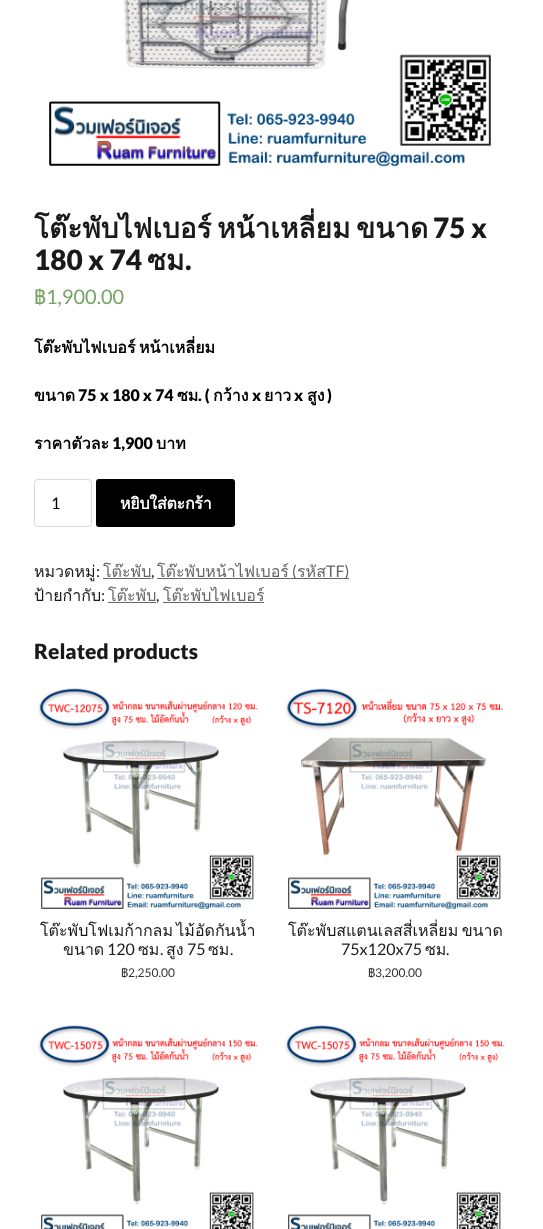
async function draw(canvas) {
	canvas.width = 543;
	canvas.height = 1229;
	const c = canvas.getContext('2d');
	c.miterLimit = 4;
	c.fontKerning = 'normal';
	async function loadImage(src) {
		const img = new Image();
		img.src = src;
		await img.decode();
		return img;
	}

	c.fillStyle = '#fff';
	c.fillRect(0, 0, 543, 1229);
	c.drawImage(await loadImage('img1.png'), 49, 0, 442, 167);
	c.font = 'bold 28px Loma';
	c.fillStyle = '#1a1a1a';
	for (const [text, x, y] of [
		['โต๊ะพับไฟเบอร์', 34, 238],
		['หน้าเหลี่ยม', 217, 238],
		['ขนาด', 356, 238],
	]) {
		c.fillText(text, x, y);
	}
	c.font = '900 28px Lato';
	c.fillText('75 x', 433, 238);
	c.fillText('180 x 74', 34, 270);
	c.font = 'bold 28px Loma';
	c.fillText('ซม', 147, 270);
	c.font = '900 28px Lato';
	c.fillText('.', 185, 270);
	c.font = '20px Loma';
	c.fillStyle = '#77a464';
	c.fillText('฿', 34, 304);
	c.font = '20px Lato';
	c.fillText('1,900.00', 46, 304);
	c.wordSpacing = '-2px';
	c.font = 'bold 16px Loma';
	c.fillStyle = '#000';
	c.fillText('โต๊ะพับไฟเบอร์ หน้าเหลี่ยม', 34, 353);
	c.wordSpacing = '0px';
	c.fillText('ขนาด', 34, 401);
	c.font = '900 16px Lato';
	c.fillText('75 x 180 x 74', 78, 401);
	c.font = 'bold 16px Loma';
	c.fillText('ซม', 177, 401);
	c.font = '900 16px Lato';
	c.fillText('. (', 198, 401);
	c.font = 'bold 16px Loma';
	c.fillText('กว้าง', 213, 401);
	c.font = '900 16px Lato';
	c.fillText('x', 252, 401);
	c.font = 'bold 16px Loma';
	c.fillText('ยาว', 264, 401);
	c.font = '900 16px Lato';
	c.fillText('x', 294, 401);
	c.font = 'bold 16px Loma';
	c.fillText('สูง', 307, 401);
	c.font = '900 16px Lato';
	c.fillText(')', 327, 401);
	c.font = 'bold 16px Loma';
	c.fillText('ราคาตัวละ', 34, 449);
	c.font = '900 16px Lato';
	c.fillText('1,900', 112, 449);
	c.font = 'bold 16px Loma';
	c.fillText('บาท', 156, 449);
	c.beginPath();
	c.roundRect(34.5, 479.5, 57, 47, 3.5);
	c.strokeStyle = '#d9d9d9';
	c.stroke();
	c.font = '16px Lato';
	c.fillText('1', 51, 509);
	c.beginPath();
	c.roundRect(96, 479, 139, 48, 3);
	c.fill();
	c.letterSpacing = '-0.25px';
	c.font = 'bold 16px Loma';
	c.fillStyle = '#fff';
	c.fillText('หยิบใส่ตะกร้า', 120, 509);
	c.letterSpacing = '0px';
	c.font = '16px Loma';
	c.fillStyle = '#1a1a1a';
	c.fillText('หมวดหมู่', 34, 577);
	c.font = '16px Lato';
	c.fillText(':', 96, 577);
	c.font = '16px Loma';
	c.fillStyle = '#666';
	c.fillText('โต๊ะพับ', 103, 577);
	c.fillRect(103, 578, 48, 1);
	c.font = '16px Lato';
	c.fillStyle = '#1a1a1a';
	c.fillText(',', 151, 577);
	c.font = '16px Loma';
	c.fillStyle = '#666';
	c.fillText('โต๊ะพับหน้าไฟเบอร์', 157, 577);
	c.fillRect(157, 578, 192, 1);
	c.font = '16px Lato';
	c.fillText('(', 292, 577);
	c.font = '16px Loma';
	c.fillText('รหัส', 297, 577);
	c.font = '16px Lato';
	c.fillText('TF)', 326, 577);
	c.font = '16px Loma';
	c.fillStyle = '#1a1a1a';
	c.fillText('ป้ายกำกับ', 34, 601);
	c.font = '16px Lato';
	c.fillText(':', 101, 601);
	c.font = '16px Loma';
	c.fillStyle = '#666';
	c.fillText('โต๊ะพับ', 108, 601);
	c.fillRect(108, 602, 48, 1);
	c.font = '16px Lato';
	c.fillStyle = '#1a1a1a';
	c.fillText(',', 156, 601);
	c.font = '16px Loma';
	c.fillStyle = '#666';
	c.fillText('โต๊ะพับไฟเบอร์', 163, 601);
	c.fillRect(163, 602, 101, 1);
	c.font = '900 21px Lato';
	c.fillStyle = '#1a1a1a';
	c.fillText('Related products', 34, 659);
	c.drawImage(await loadImage('img2.png'), 38, 688, 220, 222);
	c.wordSpacing = '-2px';
	c.font = '16px Loma';
	c.fillText('โต๊ะพับโฟเมก้ากลม ไม้อัดกันน้ำ', 40, 936);
	c.wordSpacing = '0px';
	c.fillText('ขนาด', 63, 955);
	c.font = '16px Lato';
	c.fillText('120', 107, 955);
	c.font = '16px Loma';
	c.fillText('ซม', 138, 955);
	c.font = '16px Lato';
	c.fillText('.', 160, 955);
	c.font = '16px Loma';
	c.fillText('สูง', 166, 955);
	c.font = '16px Lato';
	c.fillText('75', 187, 955);
	c.font = '16px Loma';
	c.fillText('ซม', 208, 955);
	c.font = '16px Lato';
	c.fillText('.', 230, 955);
	c.font = '12px Loma';
	c.fillStyle = '#333';
	c.fillText('฿', 121, 977);
	c.font = '12px Lato';
	c.fillText('2,250.00', 128, 977);
	c.drawImage(await loadImage('img3.png'), 285, 688, 218, 222);
	c.wordSpacing = '-2px';
	c.font = '16px Loma';
	c.fillStyle = '#1a1a1a';
	c.fillText('โต๊ะพับสแตนเลสสี่เหลี่ยม ขนาด', 288, 936);
	c.wordSpacing = '0px';
	c.font = '16px Lato';
	c.fillText('75x120x75', 341, 955);
	c.font = '16px Loma';
	c.fillText('ซม', 425, 955);
	c.font = '16px Lato';
	c.fillText('.', 446, 955);
	c.font = '12px Loma';
	c.fillStyle = '#333';
	c.fillText('฿', 368, 977);
	c.font = '12px Lato';
	c.fillText('3,200.00', 375, 977);
	c.drawImage(await loadImage('img4.png'), 38, 1025, 220, 204);
	c.drawImage(await loadImage('img5.png'), 285, 1025, 220, 204);
}

draw(document.querySelector('canvas'));
